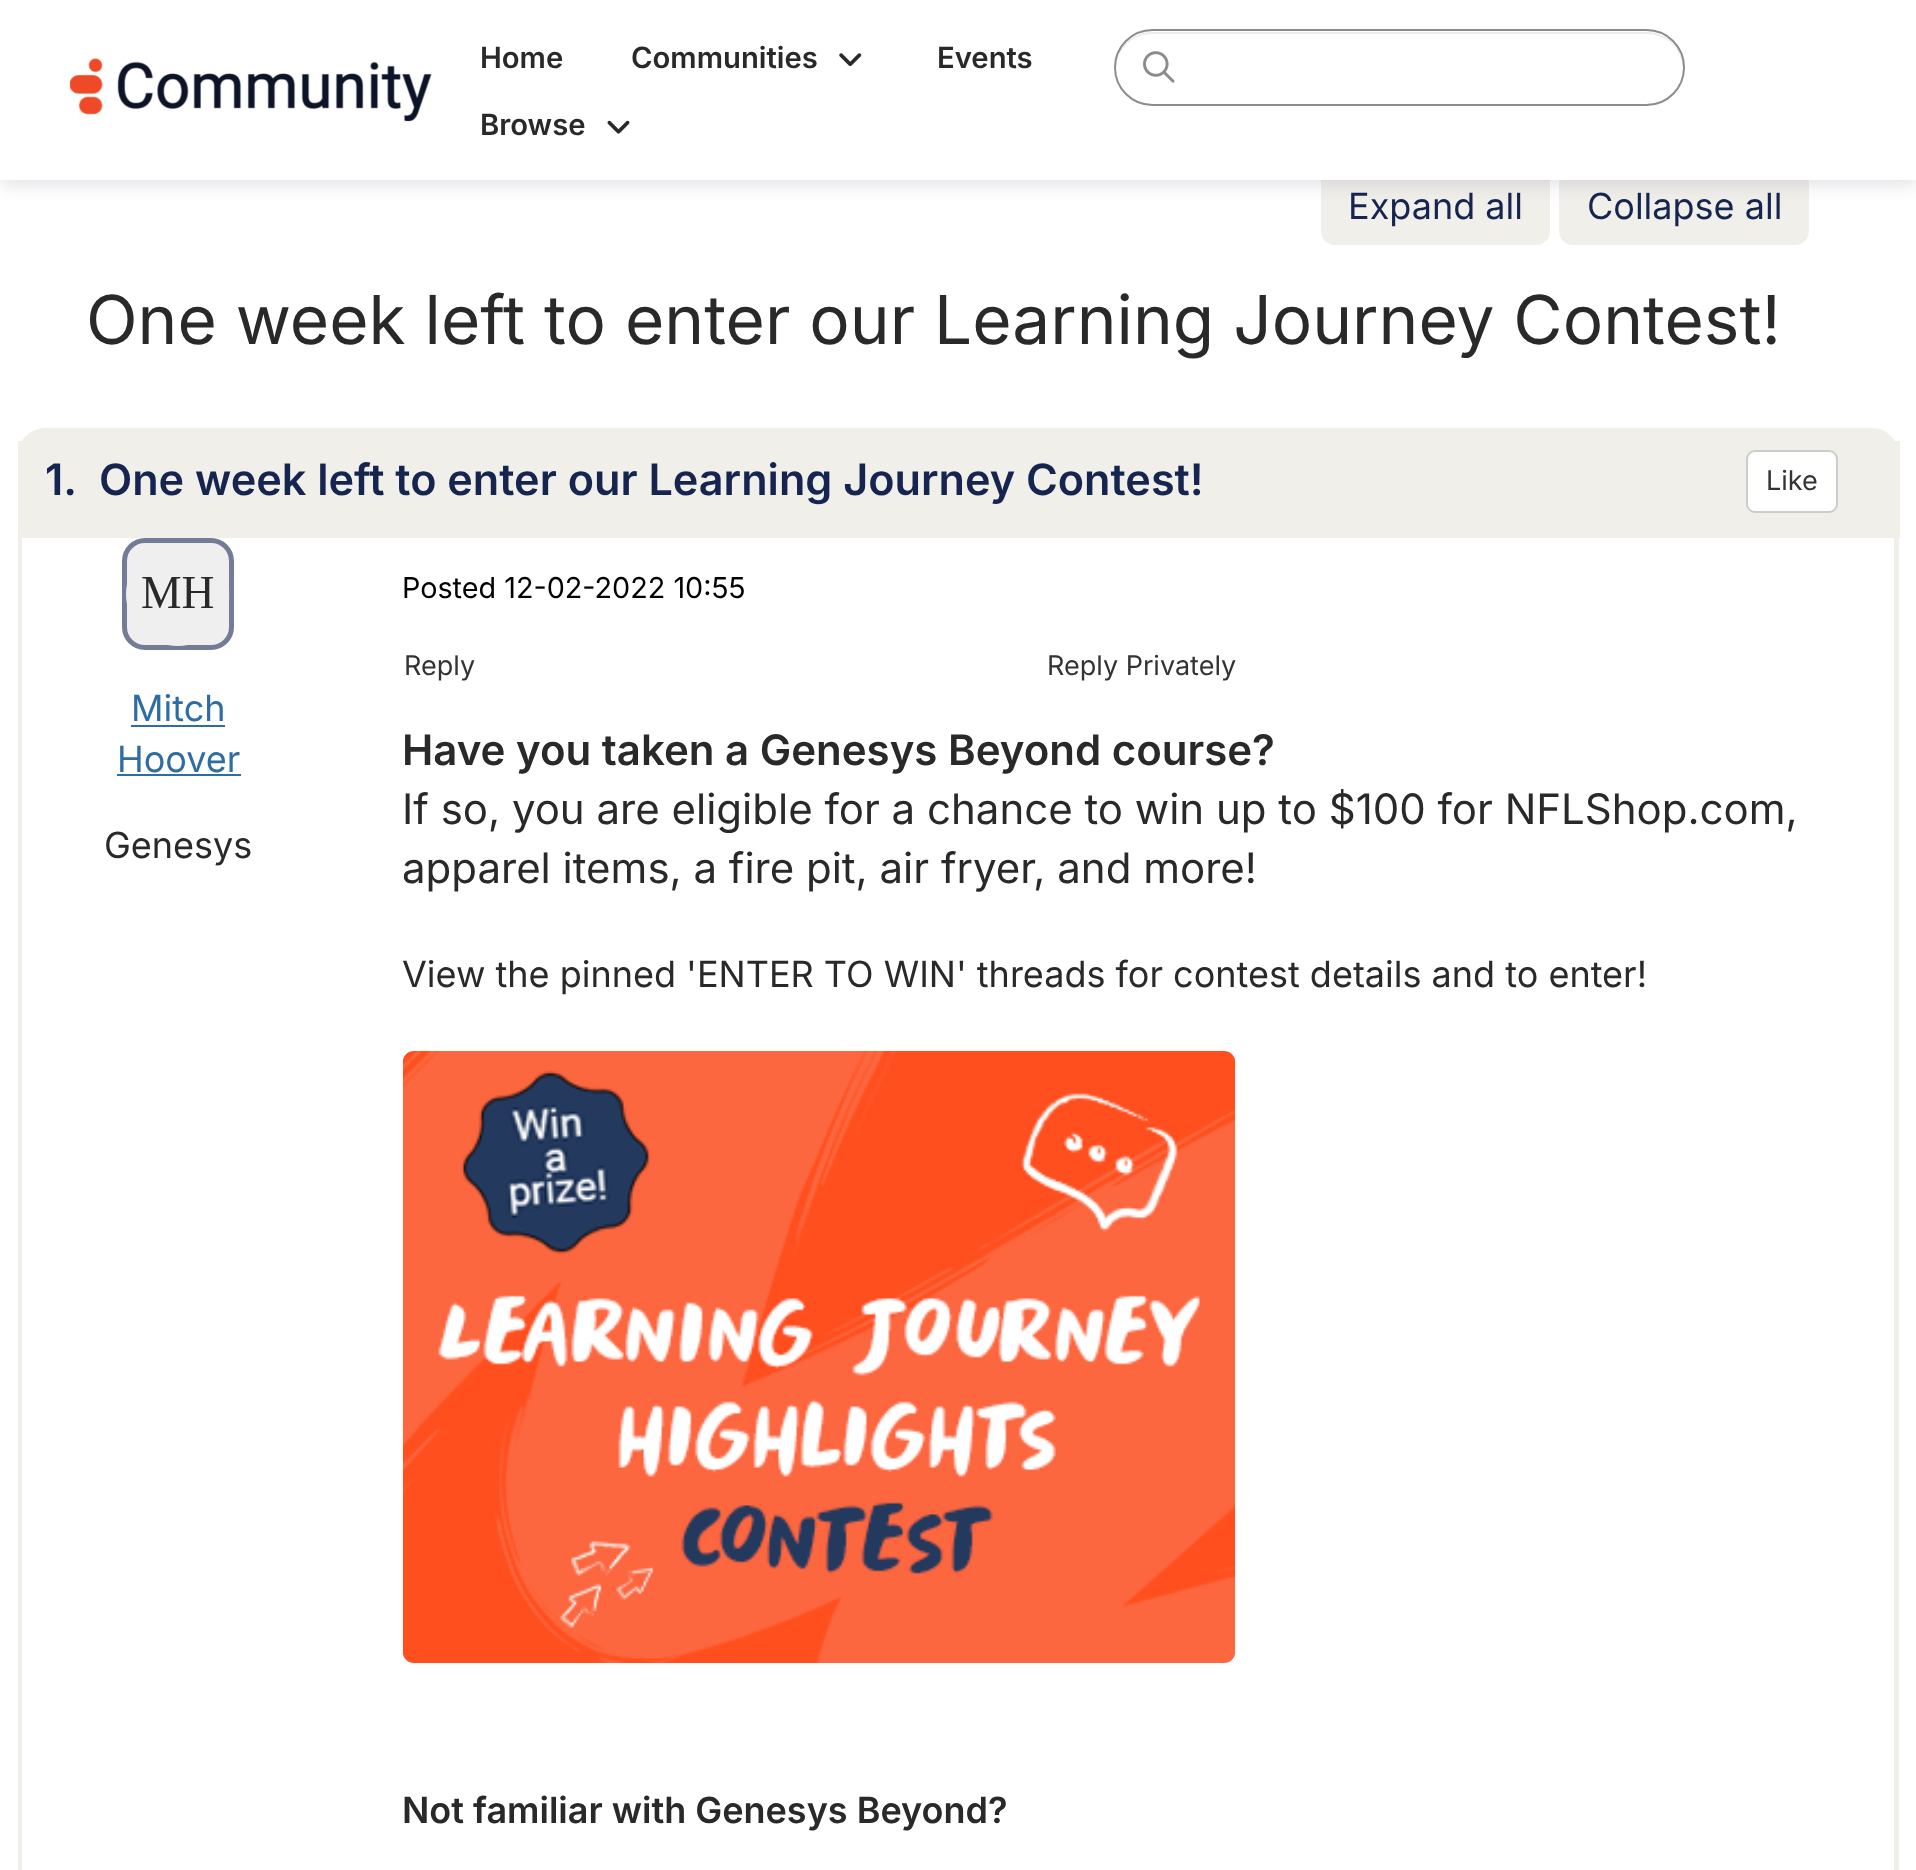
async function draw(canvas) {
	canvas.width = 1916;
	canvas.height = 1870;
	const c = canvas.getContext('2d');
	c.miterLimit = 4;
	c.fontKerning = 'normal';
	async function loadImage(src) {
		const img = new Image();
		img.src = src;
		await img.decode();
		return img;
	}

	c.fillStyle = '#fff';
	c.fillRect(0, 0, 1916, 1870);
	c.fillStyle = '#f1efea';
	c.beginPath();
	c.roundRect(1321, 167, 229, 78, 14);
	c.fill();
	c.beginPath();
	c.roundRect(1559, 167, 250, 78, 14);
	c.fill();
	c.fillStyle = '#8387913d';
	c.filter = 'blur(9px)';
	c.beginPath();
	c.rect(0, 5, 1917, 180);
	c.fill();
	c.filter = 'none';
	c.fillStyle = '#fff';
	c.fillRect(0, 0, 1916, 180);
	c.drawImage(await loadImage('img1.png'), 69, 58, 363, 64);
	c.font = '600 29.25px Inter';
	c.fillStyle = '#292929';
	c.fillText('Home', 480, 68);
	c.fillText('Communities', 631, 68);
	c.drawImage(await loadImage('img2.png'), 839, 53, 23, 14);
	c.fillText('Events', 937, 68);
	c.fillText('Browse', 480, 135);
	c.drawImage(await loadImage('img3.png'), 607, 120, 23, 14);
	c.fillStyle = '#ececec';
	c.beginPath();
	c.moveTo(1152, 34);
	c.lineTo(1647, 34);
	c.bezierCurveTo(1667, 34, 1682, 49, 1683, 69);
	c.bezierCurveTo(1684, 49, 1667, 32, 1647, 32);
	c.lineTo(1152, 32);
	c.bezierCurveTo(1132, 32, 1115, 49, 1116, 69);
	c.bezierCurveTo(1117, 49, 1132, 34, 1152, 34);
	c.closePath();
	c.fill();
	c.beginPath();
	c.roundRect(1115, 30, 569, 75, 37.5);
	c.strokeStyle = '#8c8c8c';
	c.lineWidth = 2;
	c.stroke();
	c.drawImage(await loadImage('img4.png'), 1143, 51, 32, 32);
	c.font = '36px Inter';
	c.fillStyle = '#152550';
	c.fillText('Expand all', 1348, 219);
	c.fillText('Collapse all', 1587, 219);
	c.font = '67.5px Inter';
	c.fillStyle = '#292929';
	c.fillText('One week left to enter our Learning Journey Contest!', 86, 344);
	c.fillStyle = '#f1efea';
	c.beginPath();
	c.roundRect(18, 428, 1881, 110, [27, 27, 0, 0]);
	c.fill();
	c.fillRect(1895, 441, 5, 97);
	c.fillRect(18, 441, 4, 12);
	c.font = '600 43.2px Inter';
	c.fillStyle = '#152550';
	c.fillText('1.', 45, 495);
	c.fillText('One week left to enter our Learning Journey Contest!', 99, 495);
	c.fillStyle = '#fff';
	c.beginPath();
	c.roundRect(1747, 451, 90, 61, 8);
	c.fill();
	c.strokeStyle = '#ccc';
	c.stroke();
	c.font = '27px Inter';
	c.fillStyle = '#333';
	c.fillText('Like', 1766, 490);
	c.fillStyle = '#f1efea';
	c.beginPath();
	c.moveTo(18, 538);
	c.lineTo(1899, 538);
	c.lineTo(1899, 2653);
	c.bezierCurveTo(1899, 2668, 1887, 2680, 1872, 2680);
	c.lineTo(45, 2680);
	c.bezierCurveTo(30, 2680, 18, 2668, 18, 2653);
	c.closePath();
	c.moveTo(22, 538);
	c.lineTo(1894, 538);
	c.lineTo(1894, 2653);
	c.bezierCurveTo(1894, 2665, 1884, 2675, 1872, 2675);
	c.lineTo(45, 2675);
	c.bezierCurveTo(33, 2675, 22, 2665, 22, 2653);
	c.closePath();
	c.fill('evenodd');
	c.fillStyle = '#efefef';
	c.beginPath();
	c.roundRect(124.5, 540.5, 107, 107, 20.5);
	c.fill();
	c.strokeStyle = '#737c96';
	c.lineWidth = 5;
	c.stroke();
	c.drawImage(await loadImage('img5.png'), 126, 577, 104, 69);
	c.font = '36px Inter';
	c.fillStyle = '#2e6da4';
	c.fillText('Mitch', 131, 721);
	c.fillRect(131, 725, 94, 2);
	c.fillText('Hoover', 117, 772);
	c.fillRect(117, 774, 124, 2);
	c.fillStyle = '#292929';
	c.fillText('Genesys', 104, 858);
	c.font = '28.75px Inter';
	c.fillStyle = '#000';
	c.fillText('Posted 12-02-2022 10:55', 402, 598);
	c.font = '27px Inter';
	c.fillStyle = '#333';
	c.fillText('Reply', 404, 675);
	c.fillText('Reply Privately', 1047, 675);
	c.font = '600 42px Inter';
	c.fillStyle = '#292929';
	c.fillText('Have you taken a Genesys Beyond course?', 402, 765);
	c.font = '42px Inter';
	c.fillText('If so, you are eligible for a chance to win up to $100 for NFLShop.com,', 402, 824);
	c.fillText('apparel items, a fire pit, air fryer, and more!', 402, 883);
	c.font = '36px Inter';
	c.fillText('View the pinned \'ENTER TO WIN\' threads for contest details and to enter!', 402, 987);
	c.drawImage(await loadImage('img6.png'), 402, 1051, 834, 612);
	c.font = '600 36px Inter';
	c.fillText('Not familiar with Genesys Beyond?', 402, 1823);
}

draw(document.querySelector('canvas'));
